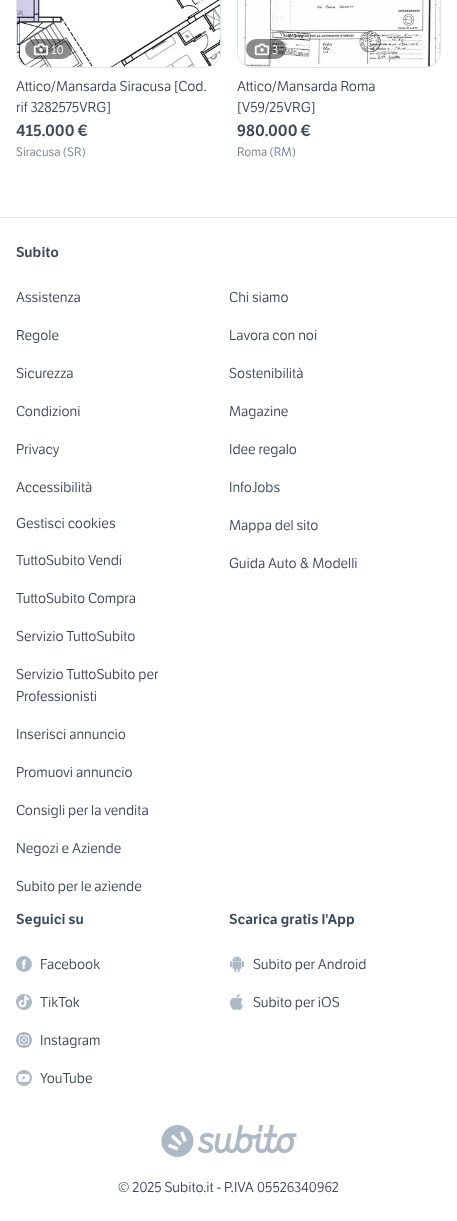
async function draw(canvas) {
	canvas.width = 457;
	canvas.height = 1221;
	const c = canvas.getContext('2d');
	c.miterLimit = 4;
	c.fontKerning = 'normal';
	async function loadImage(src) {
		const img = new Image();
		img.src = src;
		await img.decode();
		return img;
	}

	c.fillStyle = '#fff';
	c.fillRect(0, 0, 457, 1221);
	c.fillStyle = '#f7f8fb';
	c.beginPath();
	c.roundRect(16.5, -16.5, 204, 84, 15.5);
	c.fill();
	c.strokeStyle = '#dfe3ed';
	c.stroke();
	c.drawImage(await loadImage('img1.png'), 17, 0, 203, 67);
	c.fillStyle = '#00000073';
	c.beginPath();
	c.roundRect(25, 39, 47, 20, 10);
	c.fill();
	c.drawImage(await loadImage('img2.png'), 33, 43, 16, 13);
	c.font = '12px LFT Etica';
	c.fillStyle = '#fff';
	c.fillText('10', 51, 54);
	c.font = '14px LFT Etica';
	c.fillStyle = '#3c4858';
	c.fillText('Attico/Mansarda Siracusa [Cod.', 16, 91);
	c.fillText('rif 3282575VRG]', 16, 112);
	c.font = '600 16px LFT Etica';
	c.fillText('415.000 €', 16, 136);
	c.font = '12px LFT Etica';
	c.fillStyle = '#717e8f';
	c.fillText('Siracusa (SR)', 16, 156);
	c.fillStyle = '#f7f8fb';
	c.beginPath();
	c.roundRect(237.5, -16.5, 203, 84, 15.5);
	c.fill();
	c.stroke();
	c.drawImage(await loadImage('img3.png'), 238, 0, 202, 67);
	c.fillStyle = '#00000073';
	c.beginPath();
	c.roundRect(246, 39, 40, 20, 10);
	c.fill();
	c.drawImage(await loadImage('img4.png'), 254, 43, 16, 13);
	c.fillStyle = '#fff';
	c.fillText('3', 272, 54);
	c.font = '14px LFT Etica';
	c.fillStyle = '#3c4858';
	c.fillText('Attico/Mansarda Roma', 237, 91);
	c.fillText('[V59/25VRG]', 237, 112);
	c.font = '600 16px LFT Etica';
	c.fillText('980.000 €', 237, 136);
	c.font = '12px LFT Etica';
	c.fillStyle = '#717e8f';
	c.fillText('Roma (RM)', 237, 156);
	c.fillStyle = '#dfe3ed';
	c.fillRect(0, 217, 457, 1);
	c.font = '600 14px LFT Etica';
	c.fillStyle = '#3c4858';
	c.fillText('Subito', 16, 257);
	c.font = '14px LFT Etica';
	for (const [text, x, y] of [
		['Assistenza', 16, 302],
		['Regole', 16, 340],
		['Sicurezza', 16, 378],
		['Condizioni', 16, 416],
		['Privacy', 16, 454],
		['Accessibilità', 16, 492],
		['Gestisci cookies', 16, 528],
		['TuttoSubito Vendi', 16, 565],
		['TuttoSubito Compra', 16, 603],
		['Servizio TuttoSubito', 16, 641],
		['Servizio TuttoSubito per', 16, 679],
		['Professionisti', 16, 701],
		['Inserisci annuncio', 16, 739],
		['Promuovi annuncio', 16, 777],
		['Consigli per la vendita', 16, 815],
		['Negozi e Aziende', 16, 853],
		['Subito per le aziende', 16, 891],
		['Chi siamo', 229, 302],
		['Lavora con noi', 229, 340],
		['Sostenibilità', 229, 378],
		['Magazine', 229, 416],
		['Idee regalo', 229, 454],
		['InfoJobs', 229, 492],
		['Mappa del sito', 229, 530],
		['Guida Auto & Modelli', 229, 568],
	]) {
		c.fillText(text, x, y);
	}
	c.font = '600 14px LFT Etica';
	c.fillText('Seguici su', 16, 924);
	c.drawImage(await loadImage('img5.png'), 16, 956, 16, 16);
	c.font = '14px LFT Etica';
	c.fillText('Facebook', 40, 969);
	c.drawImage(await loadImage('img6.png'), 16, 994, 16, 16);
	c.fillText('TikTok', 40, 1007);
	c.drawImage(await loadImage('img7.png'), 16, 1032, 16, 16);
	c.fillText('Instagram', 40, 1045);
	c.drawImage(await loadImage('img8.png'), 16, 1070, 16, 16);
	c.fillText('YouTube', 40, 1083);
	c.font = '600 14px LFT Etica';
	c.fillText('Scarica gratis l\'App', 229, 924);
	c.drawImage(await loadImage('img9.png'), 230, 956, 14, 16);
	c.font = '14px LFT Etica';
	c.fillText('Subito per Android', 253, 969);
	c.drawImage(await loadImage('img10.png'), 230, 994, 13, 16);
	c.fillText('Subito per iOS', 253, 1007);
	c.drawImage(await loadImage('img11.png'), 161, 1125, 136, 32);
	c.fillText('© 2025 Subito.it - P.IVA 05526340962', 118, 1192);
}

draw(document.querySelector('canvas'));
